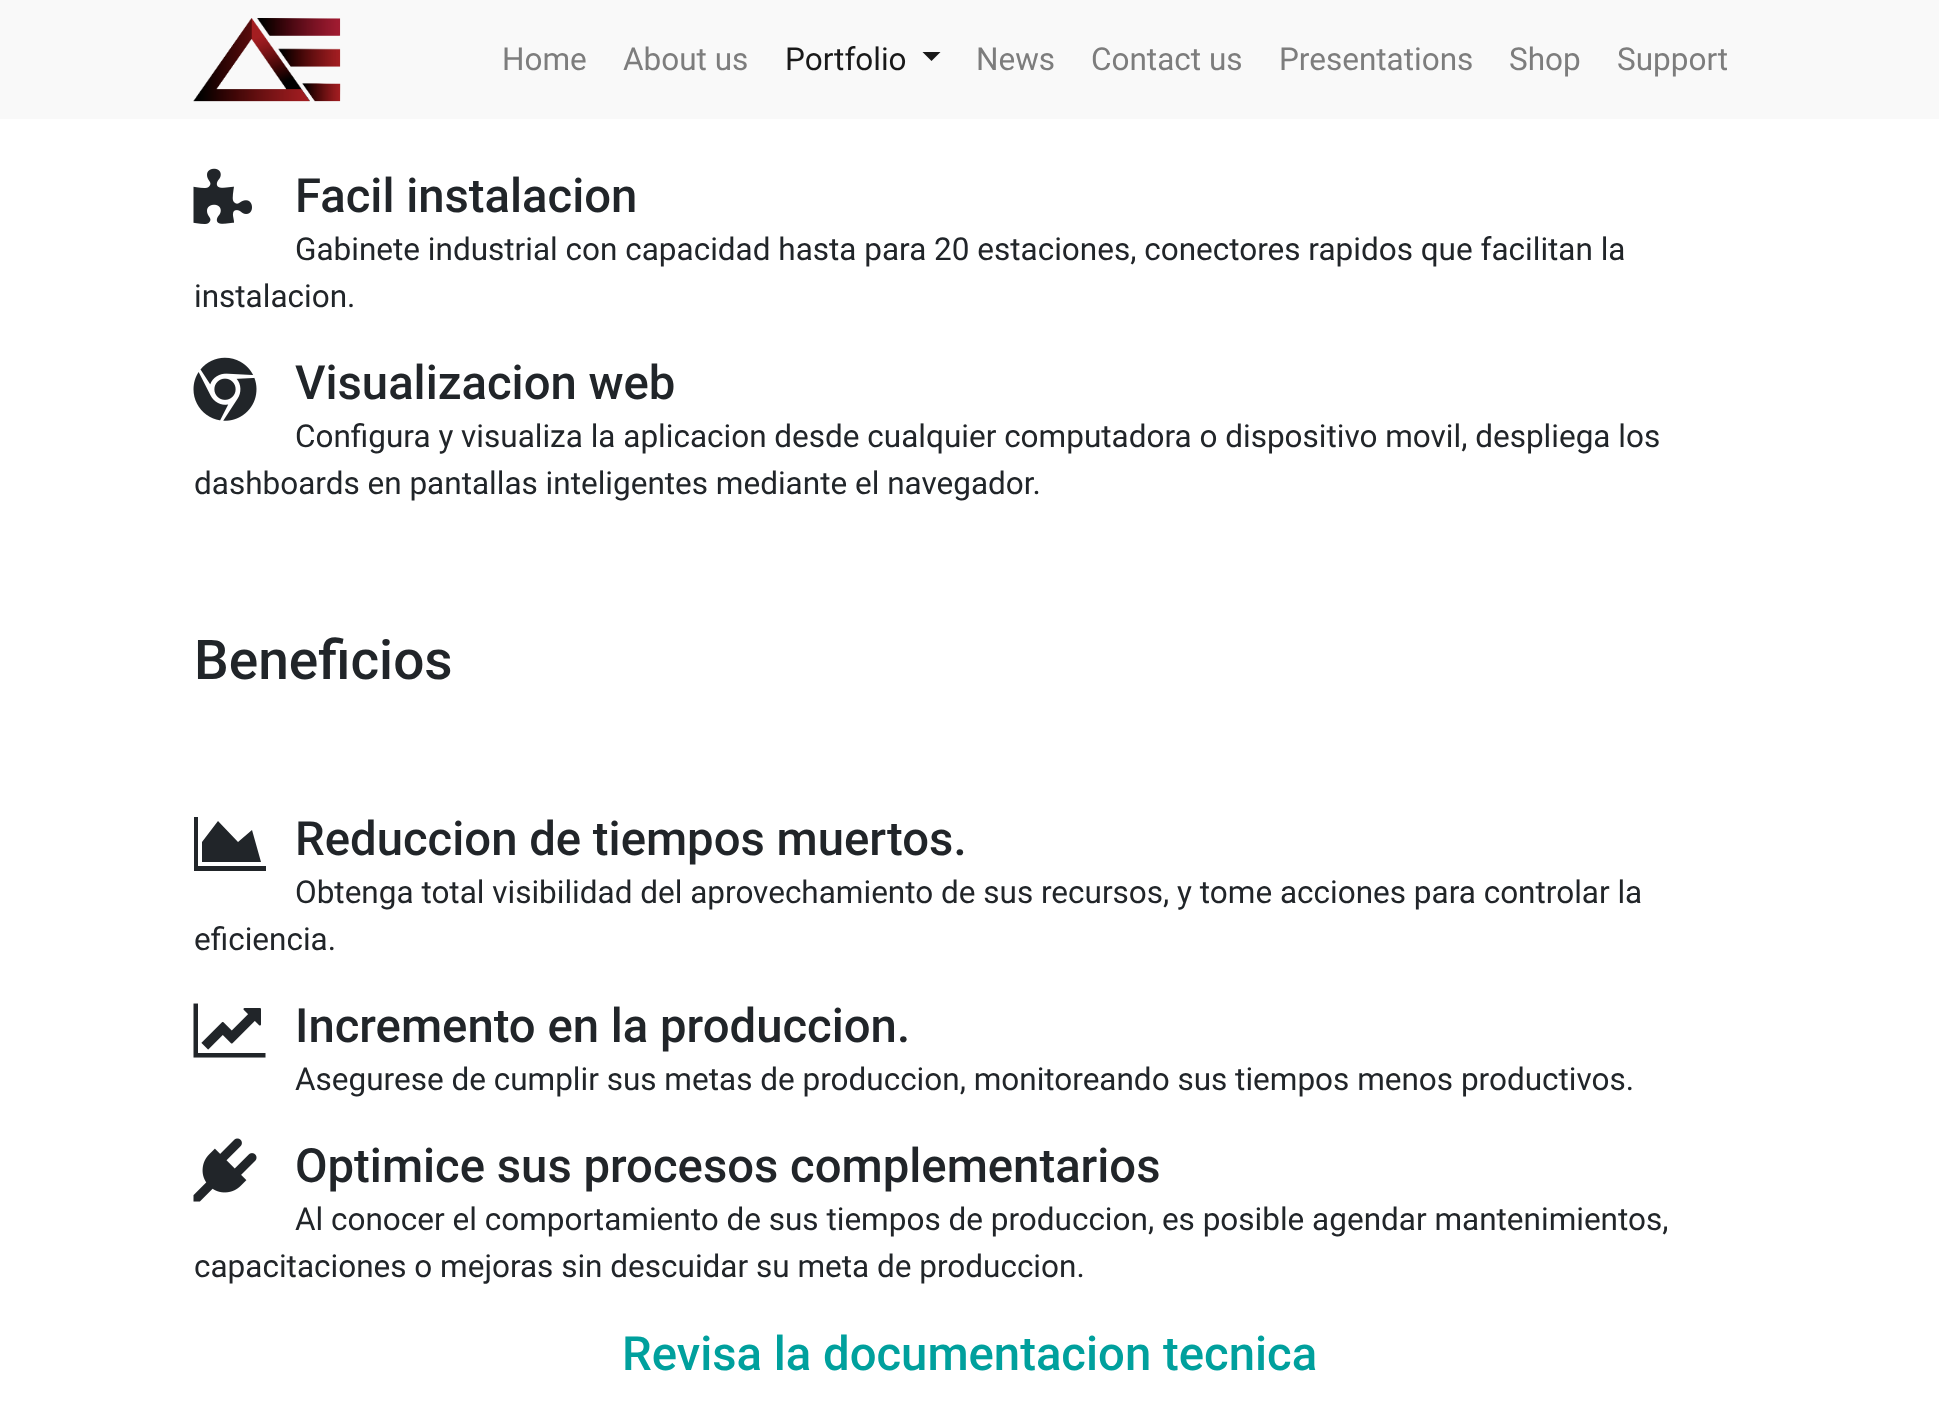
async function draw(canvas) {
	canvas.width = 1939;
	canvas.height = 1403;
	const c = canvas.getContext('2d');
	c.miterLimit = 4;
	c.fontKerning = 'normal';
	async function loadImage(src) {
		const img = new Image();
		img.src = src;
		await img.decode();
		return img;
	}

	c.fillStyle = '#fff';
	c.fillRect(0, 0, 1939, 1403);
	c.fillStyle = '#f9f9f9';
	c.fillRect(0, 0, 1939, 119);
	c.drawImage(await loadImage('img1.png'), 193, 18, 148, 84);
	c.font = '31.5px Roboto';
	c.fillStyle = '#7d7d7d';
	c.fillText('Home', 502, 70);
	c.fillText('About us', 623, 70);
	c.fillStyle = '#191919';
	c.fillText('Portfolio', 785, 70);
	c.beginPath();
	c.moveTo(922.5, 52);
	c.lineTo(940.5, 52);
	c.lineTo(931.5, 61);
	c.closePath();
	c.fill();
	c.fillStyle = '#7d7d7d';
	for (const [text, x, y] of [
		['News', 976, 70],
		['Contact us', 1091, 70],
		['Presentations', 1279, 70],
		['Shop', 1509, 70],
		['Support', 1617, 70],
	]) {
		c.fillText(text, x, y);
	}
	c.drawImage(await loadImage('img2.png'), 193, 168, 59, 56);
	c.font = '500 47.25px Roboto';
	c.fillStyle = '#212529';
	c.fillText('Facil instalacion', 295, 212);
	c.font = '31.5px Roboto';
	c.fillText('Gabinete industrial con capacidad hasta para 20 estaciones, conectores rapidos que facilitan la', 295, 260);
	c.fillText('instalacion.', 194, 307);
	c.drawImage(await loadImage('img3.png'), 193, 357, 64, 64);
	c.font = '500 47.25px Roboto';
	c.fillText('Visualizacion web', 295, 399);
	c.font = '31.5px Roboto';
	c.fillText('Configura y visualiza la aplicacion desde cualquier computadora o dispositivo movil, despliega los', 295, 447);
	c.fillText('dashboards en pantallas inteligentes mediante el navegador.', 194, 494);
	c.font = '500 55px Roboto';
	c.fillText('Beneficios', 194, 679);
	c.beginPath();
	c.moveTo(266, 866);
	c.lineTo(266, 871);
	c.lineTo(194, 871);
	c.lineTo(194, 817);
	c.lineTo(198, 817);
	c.lineTo(198, 866);
	c.closePath();
	c.moveTo(252, 830);
	c.lineTo(261, 862);
	c.lineTo(202, 862);
	c.lineTo(202, 842);
	c.lineTo(218, 821);
	c.lineTo(238, 842);
	c.closePath();
	c.fill();
	c.font = '500 47.25px Roboto';
	c.fillText('Reduccion de tiempos muertos.', 295, 855);
	c.font = '31.5px Roboto';
	c.fillText('Obtenga total visibilidad del aprovechamiento de sus recursos, y tome acciones para controlar la', 295, 903);
	c.fillText('eficiencia.', 194, 950);
	c.drawImage(await loadImage('img4.png'), 193, 1003, 73, 55);
	c.font = '500 47.25px Roboto';
	c.fillText('Incremento en la produccion.', 295, 1042);
	c.font = '31.5px Roboto';
	c.fillText('Asegurese de cumplir sus metas de produccion, monitoreando sus tiempos menos productivos.', 295, 1090);
	c.drawImage(await loadImage('img5.png'), 193, 1138, 64, 64);
	c.font = '500 47.25px Roboto';
	c.fillText('Optimice sus procesos complementarios', 295, 1182);
	c.font = '31.5px Roboto';
	c.fillText('Al conocer el comportamiento de sus tiempos de produccion, es posible agendar mantenimientos,', 295, 1230);
	c.fillText('capacitaciones o mejoras sin descuidar su meta de produccion.', 194, 1277);
	c.font = '500 47.25px Roboto';
	c.fillStyle = '#00a09d';
	c.fillText('Revisa la documentacion tecnica', 622, 1370);
}

draw(document.querySelector('canvas'));
